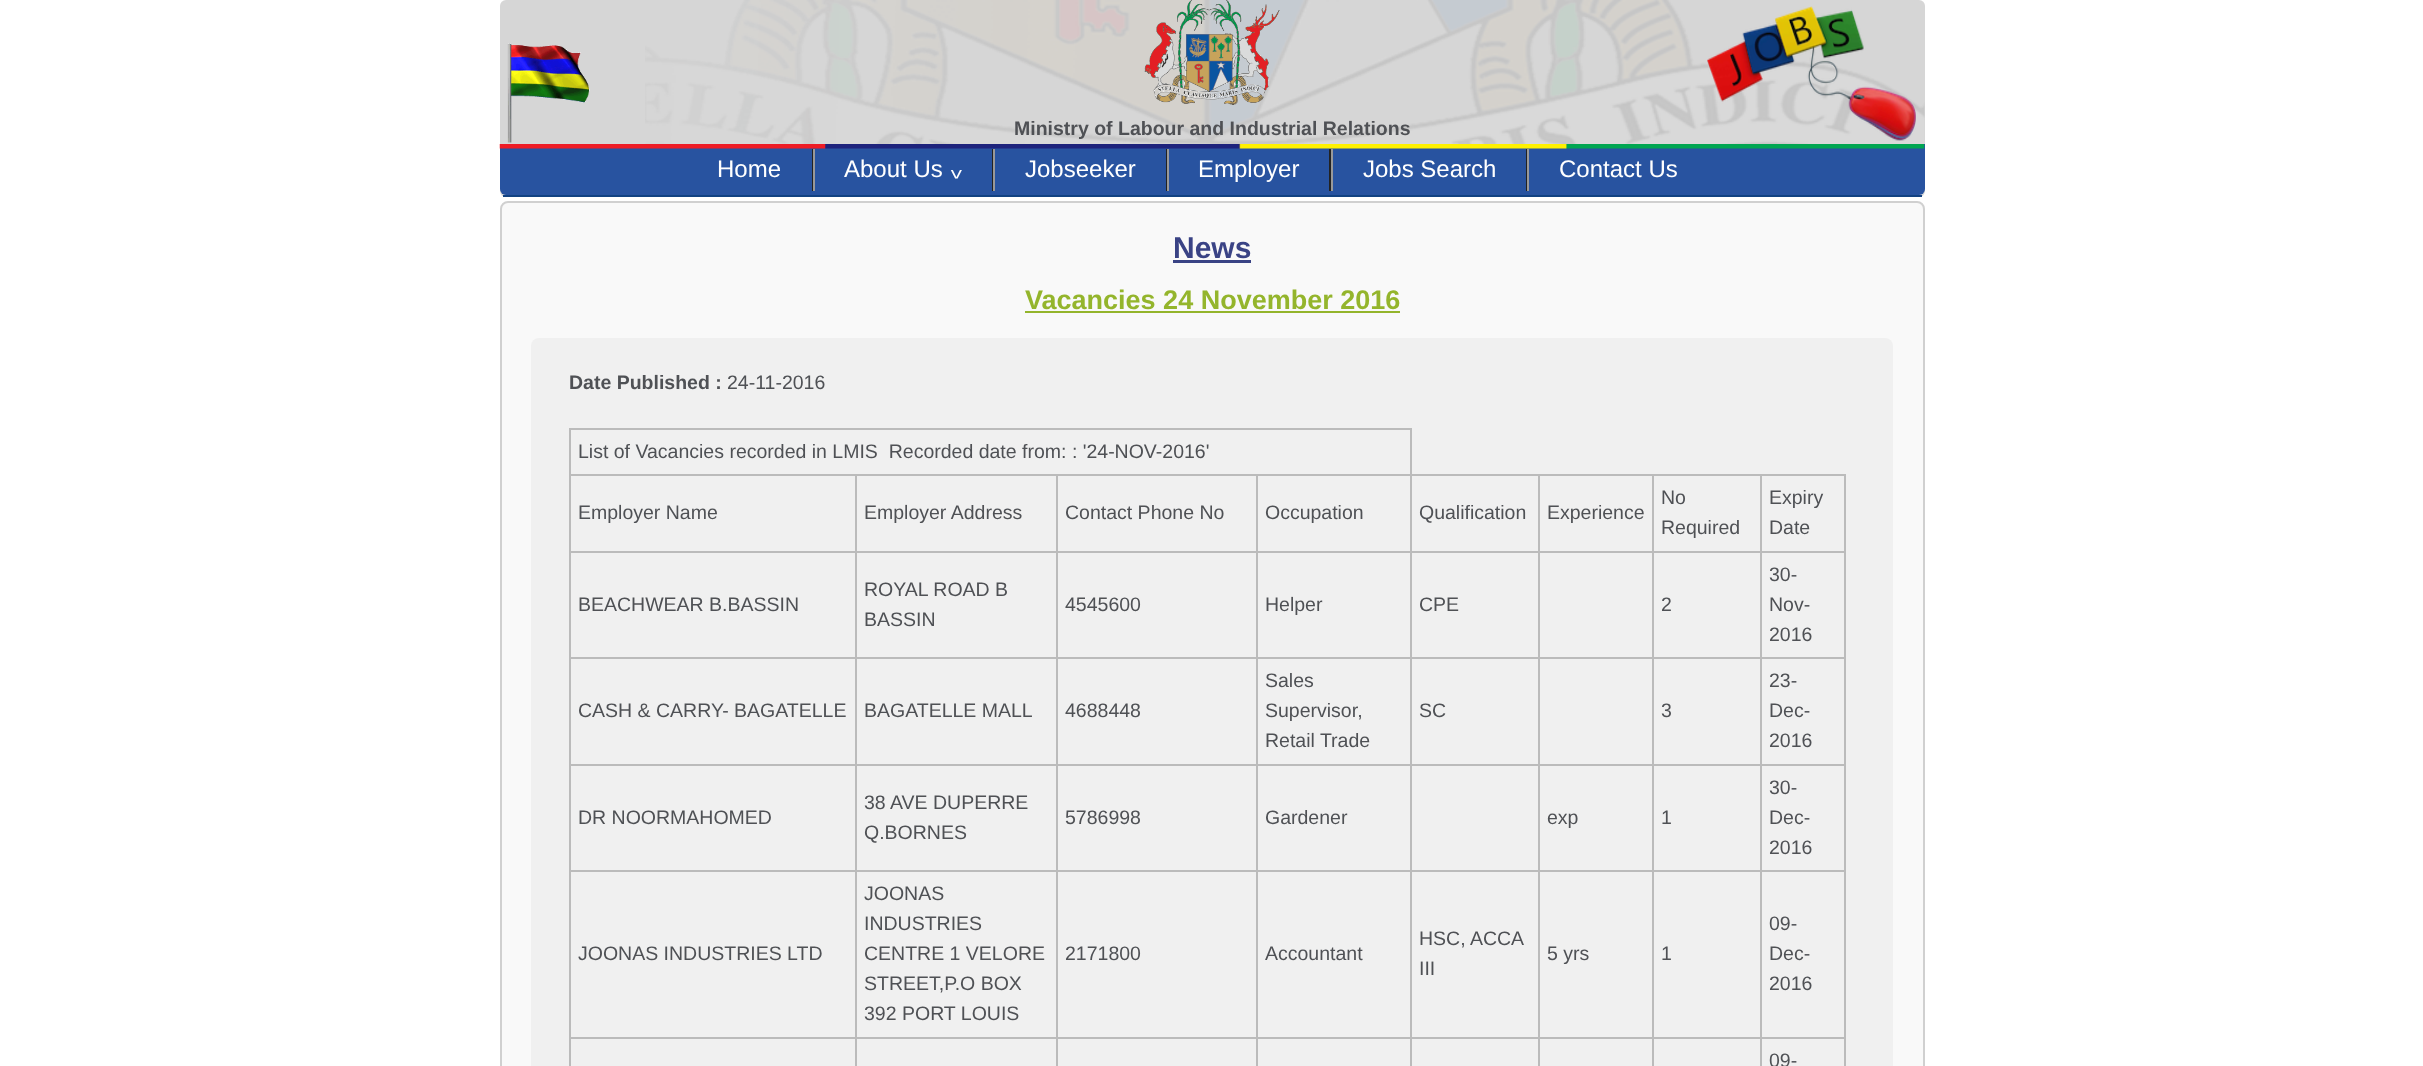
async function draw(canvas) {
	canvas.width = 2423;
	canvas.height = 1066;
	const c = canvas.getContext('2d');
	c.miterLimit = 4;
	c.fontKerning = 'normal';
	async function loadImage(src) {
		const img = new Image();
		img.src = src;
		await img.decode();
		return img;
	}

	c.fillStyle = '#fff';
	c.fillRect(0, 0, 2423, 1066);
	c.fillStyle = '#d6d6d6';
	c.beginPath();
	c.roundRect(500, 0, 1425, 197, 6);
	c.fill();
	c.fillStyle = '#124282';
	c.fillRect(503, 195, 1419, 2);
	c.drawImage(await loadImage('img1.png'), 645, 0, 1280, 144);
	c.drawImage(await loadImage('img2.png'), 507, 43, 83, 100);
	c.drawImage(await loadImage('img3.png'), 1144, 0, 136, 105);
	c.drawImage(await loadImage('img4.png'), 1707, 6, 209, 135);
	c.font = 'bold 19.5px Liberation Sans';
	c.fillStyle = '#4f5155';
	c.fillText('Ministry of Labour and Industrial Relations', 1014, 135);
	c.fillStyle = '#2853a0';
	c.beginPath();
	c.roundRect(500, 144, 1425, 51, [0, 0, 6, 6]);
	c.fill();
	c.drawImage(await loadImage('img5.png'), 499, 144, 1426, 5);
	c.fillStyle = '#222';
	c.fillRect(812, 149, 1, 42);
	c.font = '24px Liberation Sans';
	c.fillStyle = '#fff';
	c.fillText('Home', 717, 177);
	c.fillStyle = '#222';
	c.fillRect(992, 149, 1, 42);
	c.fillStyle = '#999';
	c.fillRect(813, 149, 2, 42);
	c.fillStyle = '#fff';
	c.fillText('About Us', 844, 177);
	c.save();
	c.translate(962, 162);
	c.rotate(180 * Math.PI / 180);
	c.fillText('^', 0, 0);
	c.restore();
	c.fillStyle = '#222';
	c.fillRect(1166, 149, 1, 42);
	c.fillStyle = '#999';
	c.fillRect(993, 149, 2, 42);
	c.fillStyle = '#fff';
	c.fillText('Jobseeker', 1025, 177);
	c.fillStyle = '#222';
	c.fillRect(1329, 149, 2, 42);
	c.fillStyle = '#999';
	c.fillRect(1167, 149, 2, 42);
	c.fillStyle = '#fff';
	c.fillText('Employer', 1198, 177);
	c.fillStyle = '#222';
	c.fillRect(1526, 149, 1, 42);
	c.fillStyle = '#999';
	c.fillRect(1331, 149, 2, 42);
	c.fillStyle = '#fff';
	c.fillText('Jobs Search', 1363, 177);
	c.fillStyle = '#999';
	c.fillRect(1527, 149, 2, 42);
	c.fillStyle = '#fff';
	c.fillText('Contact Us', 1559, 177);
	c.fillStyle = '#f9f9f9';
	c.beginPath();
	c.roundRect(501, 202, 1423, 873, 7);
	c.fill();
	c.strokeStyle = '#d0d0d0';
	c.lineWidth = 2;
	c.stroke();
	c.font = 'bold 30px Liberation Sans';
	c.fillStyle = '#3a4385';
	c.fillText('News', 1173, 258);
	c.fillRect(1173, 260, 78, 3);
	c.font = 'bold 27px Liberation Sans';
	c.fillStyle = '#94b52c';
	c.fillText('Vacancies 24 November 2016', 1025, 309);
	c.fillRect(1025, 311, 375, 2);
	c.fillStyle = '#f0f0f0';
	c.beginPath();
	c.roundRect(531, 338, 1362, 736, 8);
	c.fill();
	c.font = 'bold 19.5px Liberation Sans';
	c.fillStyle = '#4f5155';
	c.fillText('Date Published :', 569, 389);
	c.font = '19.5px Liberation Sans';
	c.fillText('24-11-2016', 727, 389);
	for (const [x, y, w, h, color] of [
		[569, 428, 843, 2, '#bbb'],
		[1760, 474, 85, 2, '#bbb'],
		[1760, 551, 85, 2, '#bbb'],
		[1760, 657, 85, 2, '#bbb'],
		[1760, 764, 85, 2, '#bbb'],
		[1760, 870, 85, 2, '#bbb'],
		[1760, 1037, 85, 2, '#bbb'],
		[1760, 1037, 2, 29, '#bbb'],
		[1652, 1037, 109, 2, '#bbb'],
		[1760, 870, 2, 168, '#bbb'],
		[1652, 870, 109, 2, '#bbb'],
		[1760, 764, 2, 108, '#bbb'],
		[1652, 764, 109, 2, '#bbb'],
		[1760, 657, 2, 108, '#bbb'],
		[1652, 657, 109, 2, '#bbb'],
		[1760, 551, 2, 108, '#bbb'],
		[1652, 551, 109, 2, '#bbb'],
		[1760, 474, 2, 78, '#bbb'],
		[1652, 474, 109, 2, '#bbb'],
		[1652, 1037, 2, 29, '#bbb'],
		[1538, 1037, 115, 2, '#bbb'],
		[1652, 870, 2, 168, '#bbb'],
		[1538, 870, 115, 2, '#bbb'],
		[1652, 764, 2, 108, '#bbb'],
		[1538, 764, 115, 2, '#bbb'],
		[1652, 657, 2, 108, '#bbb'],
		[1538, 657, 115, 2, '#bbb'],
		[1652, 551, 2, 108, '#bbb'],
		[1538, 551, 115, 2, '#bbb'],
		[1652, 474, 2, 78, '#bbb'],
		[1538, 474, 115, 2, '#bbb'],
		[1538, 1037, 2, 29, '#bbb'],
		[1410, 1037, 129, 2, '#bbb'],
		[1538, 870, 2, 168, '#bbb'],
		[1410, 870, 129, 2, '#bbb'],
		[1538, 764, 2, 108, '#bbb'],
		[1410, 764, 129, 2, '#bbb'],
		[1538, 657, 2, 108, '#bbb'],
		[1410, 657, 129, 2, '#bbb'],
		[1538, 551, 2, 108, '#bbb'],
		[1410, 551, 129, 2, '#bbb'],
		[1538, 474, 2, 78, '#bbb'],
		[1410, 474, 129, 2, '#bbb'],
		[1410, 1037, 2, 29, '#bbb'],
		[1256, 1037, 156, 2, '#bbb'],
		[1410, 870, 2, 168, '#bbb'],
		[1256, 870, 156, 2, '#bbb'],
		[1410, 764, 2, 108, '#bbb'],
		[1256, 764, 156, 2, '#bbb'],
		[1410, 657, 2, 108, '#bbb'],
		[1256, 657, 156, 2, '#bbb'],
		[1410, 551, 2, 108, '#bbb'],
		[1256, 551, 156, 2, '#bbb'],
		[1410, 474, 2, 78, '#bbb'],
		[1256, 474, 156, 2, '#bbb'],
		[1410, 428, 2, 48, '#bbb'],
		[1256, 1037, 2, 29, '#bbb'],
		[1056, 1037, 201, 2, '#bbb'],
		[1256, 870, 2, 168, '#bbb'],
		[1056, 870, 201, 2, '#bbb'],
		[1256, 764, 2, 108, '#bbb'],
		[1056, 764, 201, 2, '#bbb'],
		[1256, 657, 2, 108, '#bbb'],
		[1056, 657, 201, 2, '#bbb'],
		[1256, 551, 2, 108, '#bbb'],
		[1056, 551, 201, 2, '#bbb'],
		[1256, 474, 2, 78, '#bbb'],
		[1056, 474, 201, 2, '#bbb'],
		[1056, 1037, 2, 29, '#bbb'],
		[855, 1037, 203, 2, '#bbb'],
		[1056, 870, 2, 168, '#bbb'],
		[855, 870, 203, 2, '#bbb'],
		[1056, 764, 2, 108, '#bbb'],
		[855, 764, 203, 2, '#bbb'],
		[1056, 657, 2, 108, '#bbb'],
		[855, 657, 203, 2, '#bbb'],
		[1056, 551, 2, 108, '#bbb'],
		[855, 551, 203, 2, '#bbb'],
		[1056, 474, 2, 78, '#bbb'],
		[855, 474, 203, 2, '#bbb'],
		[855, 1037, 2, 29, '#bbb'],
		[569, 1037, 288, 2, '#bbb'],
		[855, 870, 2, 168, '#bbb'],
		[569, 870, 288, 2, '#bbb'],
		[855, 764, 2, 108, '#bbb'],
		[569, 764, 288, 2, '#bbb'],
		[855, 657, 2, 108, '#bbb'],
		[569, 657, 288, 2, '#bbb'],
		[855, 551, 2, 108, '#bbb'],
		[569, 551, 288, 2, '#bbb'],
		[855, 474, 2, 78, '#bbb'],
		[569, 474, 288, 2, '#bbb'],
		[569, 1037, 2, 29, '#bbb'],
		[569, 870, 2, 168, '#bbb'],
		[569, 764, 2, 108, '#bbb'],
		[569, 657, 2, 108, '#bbb'],
		[569, 551, 2, 108, '#bbb'],
		[569, 474, 2, 78, '#bbb'],
		[569, 428, 2, 48, '#bbb'],
	]) {
		c.fillStyle = color;
		c.fillRect(x, y, w, h);
	}
	c.fillStyle = '#4f5155';
	for (const [text, x, y] of [
		['List of Vacancies recorded in LMIS  Recorded date from: : \'24-NOV-2016\'', 578, 458],
		['Employer Name', 578, 519],
		['Employer Address', 864, 519],
		['Contact Phone No', 1065, 519],
		['Occupation', 1265, 519],
		['Qualification', 1419, 519],
		['Experience', 1547, 519],
		['No', 1661, 504],
		['Required', 1661, 534],
	]) {
		c.fillText(text, x, y);
	}
	for (const [x, y, w, h, color] of [
		[1844, 1037, 2, 29, '#bbb'],
		[1844, 870, 2, 168, '#bbb'],
		[1844, 764, 2, 108, '#bbb'],
		[1844, 657, 2, 108, '#bbb'],
		[1844, 551, 2, 108, '#bbb'],
		[1844, 474, 2, 78, '#bbb'],
	]) {
		c.fillStyle = color;
		c.fillRect(x, y, w, h);
	}
	c.fillStyle = '#4f5155';
	for (const [text, x, y] of [
		['Expiry', 1769, 504],
		['Date', 1769, 534],
		['BEACHWEAR B.BASSIN', 578, 611],
		['ROYAL ROAD B', 864, 596],
		['BASSIN', 864, 626],
		['4545600', 1065, 611],
		['Helper', 1265, 611],
		['CPE', 1419, 611],
		['2', 1661, 611],
		['30-', 1769, 581],
		['Nov-', 1769, 611],
		['2016', 1769, 641],
		['CASH & CARRY- BAGATELLE', 578, 717],
		['BAGATELLE MALL', 864, 717],
		['4688448', 1065, 717],
		['Sales', 1265, 687],
		['Supervisor,', 1265, 717],
		['Retail Trade', 1265, 747],
		['SC', 1419, 717],
		['3', 1661, 717],
		['23-', 1769, 687],
		['Dec-', 1769, 717],
		['2016', 1769, 747],
		['DR NOORMAHOMED', 578, 824],
		['38 AVE DUPERRE', 864, 809],
		['Q.BORNES', 864, 839],
		['5786998', 1065, 824],
		['Gardener', 1265, 824],
		['exp', 1547, 824],
		['1', 1661, 824],
		['30-', 1769, 794],
		['Dec-', 1769, 824],
		['2016', 1769, 854],
		['JOONAS INDUSTRIES LTD', 578, 960],
		['JOONAS', 864, 900],
		['INDUSTRIES', 864, 930],
		['CENTRE 1 VELORE', 864, 960],
		['STREET,P.O BOX', 864, 990],
		['392 PORT LOUIS', 864, 1020],
		['2171800', 1065, 960],
		['Accountant', 1265, 960],
		['HSC, ACCA', 1419, 945],
		['III', 1419, 975],
		['5 yrs', 1547, 960],
		['1', 1661, 960],
		['09-', 1769, 930],
		['Dec-', 1769, 960],
		['2016', 1769, 990],
		['09-', 1769, 1067],
	]) {
		c.fillText(text, x, y);
	}
}

draw(document.querySelector('canvas'));
